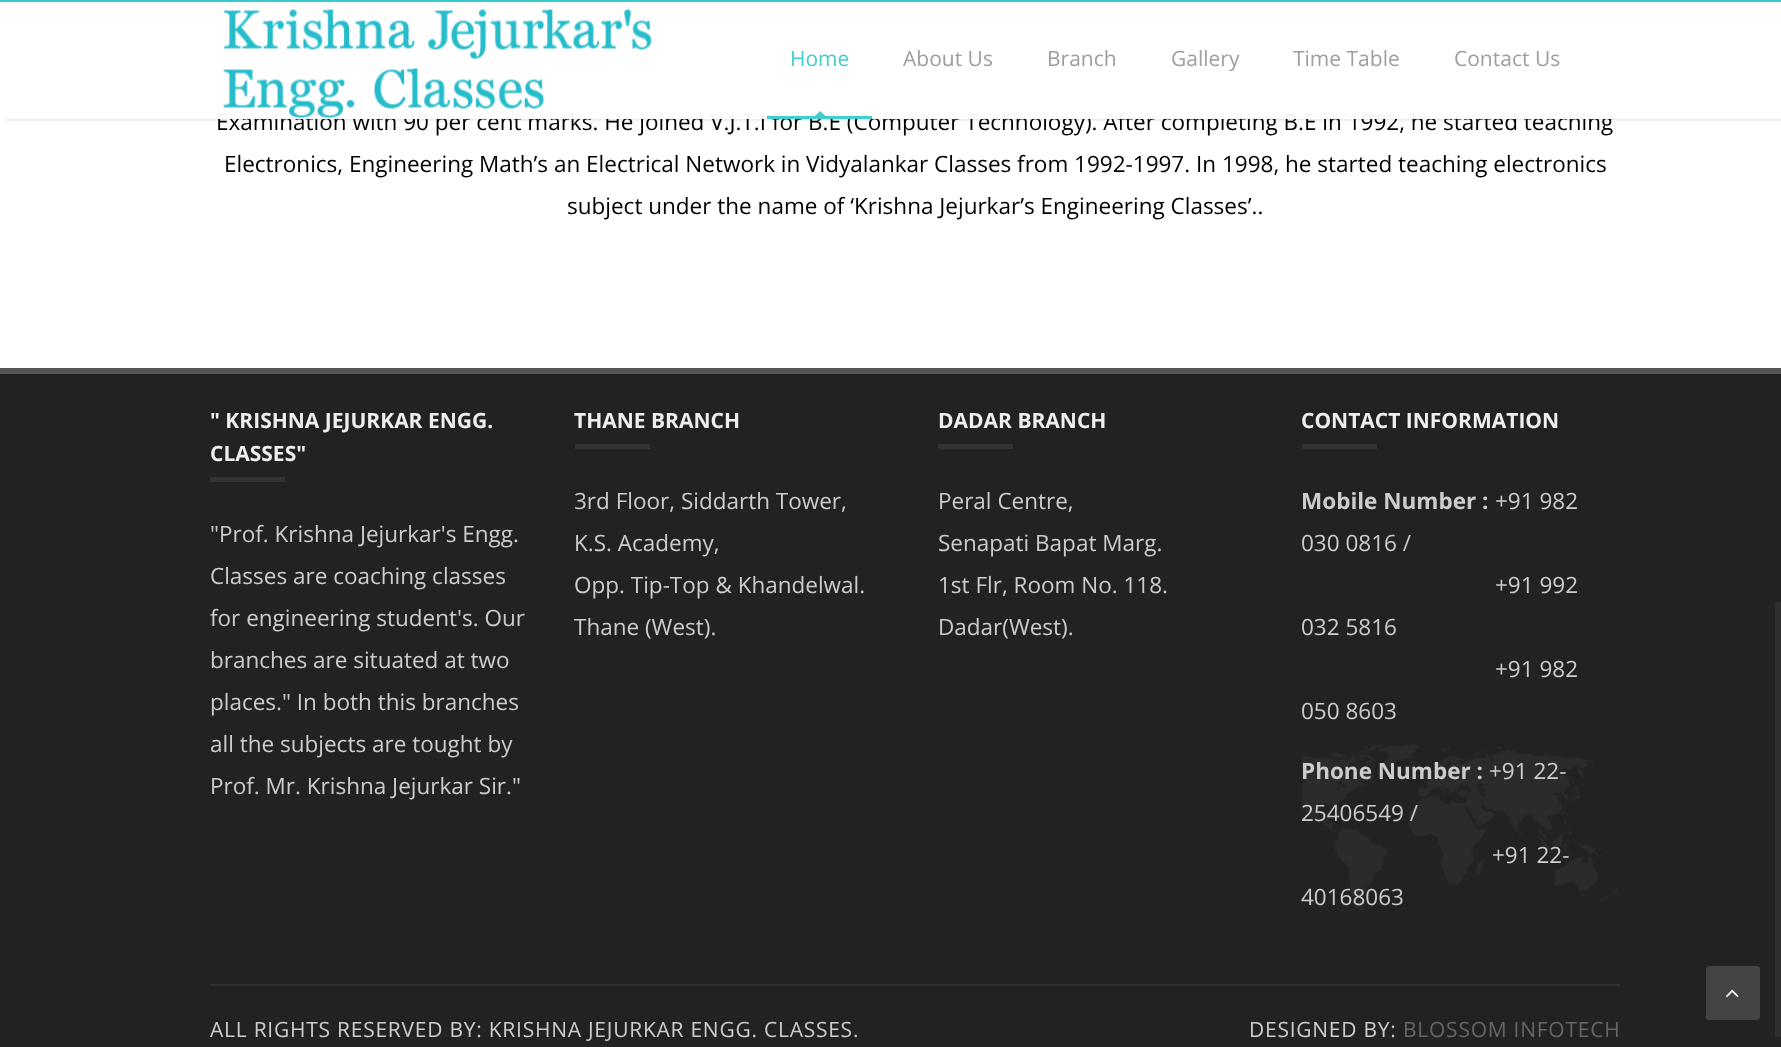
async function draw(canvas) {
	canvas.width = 1781;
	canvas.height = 1047;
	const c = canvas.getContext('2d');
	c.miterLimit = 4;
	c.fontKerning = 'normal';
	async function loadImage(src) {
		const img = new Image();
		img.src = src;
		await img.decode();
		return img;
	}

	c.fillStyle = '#fff';
	c.fillRect(0, 0, 1781, 1047);
	c.save();
	c.beginPath();
	c.moveTo(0, 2);
	c.lineTo(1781, 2);
	c.lineTo(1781, 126);
	c.lineTo(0, 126);
	c.closePath();
	c.moveTo(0, 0);
	c.lineTo(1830, 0);
	c.lineTo(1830, 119);
	c.lineTo(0, 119);
	c.closePath();
	c.clip('evenodd');
	c.fillStyle = '#00000030';
	c.filter = 'blur(2px)';
	c.beginPath();
	c.rect(5, 9, 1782, 110);
	c.fill();
	c.filter = 'none';
	c.restore();
	c.fillStyle = '#1cb9c8f2';
	c.fillRect(0, 0, 1781, 2);
	c.fillStyle = '#37cacbf2';
	c.fillRect(0, 0, 1781, 2);
	c.font = '22.5px Open Sans';
	c.fillStyle = '#000';
	c.fillText('Examination with 90 per cent marks. He joined V.J.T.I for B.E (Computer Technology). After completing B.E in 1992, he started teaching', 216, 130);
	c.fillStyle = '#fffffff2';
	c.fillRect(3, 112, 1778, 7);
	c.drawImage(await loadImage('img1.png'), 223, 9, 429, 109);
	c.fillStyle = '#38cbcbf2';
	c.fillRect(767, 116, 105, 3);
	c.font = '21px Open Sans';
	c.fillStyle = '#42cece';
	c.fillText('Home', 790, 66);
	c.save();
	c.beginPath();
	c.rect(767, 2, 105, 114);
	c.clip();
	c.fillStyle = '#38cbcbf2';
	c.beginPath();
	c.moveTo(820, 111);
	c.lineTo(825.5, 116);
	c.lineTo(820, 121.5);
	c.lineTo(815, 116);
	c.closePath();
	c.fill();
	c.restore();
	c.fillStyle = '#9e9e9e';
	c.fillText('About Us', 903, 66);
	c.fillText('Branch', 1047, 66);
	c.save();
	c.beginPath();
	c.rect(1025, 2, 114, 114);
	c.clip();
	c.fillStyle = '#fff';
	c.beginPath();
	c.moveTo(1082.5, 111);
	c.lineTo(1088, 116);
	c.lineTo(1082.5, 121.5);
	c.lineTo(1077, 116.5);
	c.closePath();
	c.fill();
	c.restore();
	for (const [text, x, y] of [
		['Gallery', 1171, 66],
		['Time Table', 1293, 66],
		['Contact Us', 1454, 66],
	]) {
		c.fillText(text, x, y);
	}
	c.font = '22.5px Open Sans';
	c.fillStyle = '#000';
	c.fillText('Electronics, Engineering Math’s an Electrical Network in Vidyalankar Classes from 1992-1997. In 1998, he started teaching electronics', 224, 172);
	c.fillText('subject under the name of ‘Krishna Jejurkar’s Engineering Classes’..', 567, 214);
	c.fillStyle = '#222';
	c.fillRect(0, 374, 1781, 673);
	c.fillStyle = '#555';
	c.fillRect(0, 368, 1781, 6);
	c.font = 'bold 21px Open Sans';
	c.fillStyle = '#eee';
	c.fillText('" KRISHNA JEJURKAR ENGG.', 210, 428);
	c.fillText('CLASSES"', 210, 461);
	c.fillStyle = '#333';
	c.fillRect(210, 477, 75, 5);
	c.font = '22.5px Open Sans';
	c.fillStyle = '#ccc';
	for (const [text, x, y] of [
		['"Prof. Krishna Jejurkar\'s Engg.', 210, 542],
		['Classes are coaching classes', 210, 584],
		['for engineering student\'s. Our', 210, 626],
		['branches are situated at two', 210, 668],
		['places." In both this branches', 210, 710],
		['all the subjects are tought by', 210, 752],
		['Prof. Mr. Krishna Jejurkar Sir."', 210, 794],
	]) {
		c.fillText(text, x, y);
	}
	c.font = 'bold 21px Open Sans';
	c.fillStyle = '#eee';
	c.fillText('THANE BRANCH', 574, 428);
	c.fillStyle = '#333';
	c.fillRect(575, 444, 75, 5);
	c.font = '22.5px Open Sans';
	c.fillStyle = '#ccc';
	for (const [text, x, y] of [
		['3rd Floor, Siddarth Tower,', 574, 509],
		['K.S. Academy,', 574, 551],
		['Opp. Tip-Top & Khandelwal.', 574, 593],
		['Thane (West).', 574, 635],
	]) {
		c.fillText(text, x, y);
	}
	c.font = 'bold 21px Open Sans';
	c.fillStyle = '#eee';
	c.fillText('DADAR BRANCH', 938, 428);
	c.fillStyle = '#333';
	c.fillRect(938, 444, 75, 5);
	c.font = '22.5px Open Sans';
	c.fillStyle = '#ccc';
	for (const [text, x, y] of [
		['Peral Centre,', 938, 509],
		['Senapati Bapat Marg.', 938, 551],
		['1st Flr, Room No. 118.', 938, 593],
		['Dadar(West).', 938, 635],
	]) {
		c.fillText(text, x, y);
	}
	c.drawImage(await loadImage('img2.png'), 1302, 744, 316, 167);
	c.font = 'bold 21px Open Sans';
	c.fillStyle = '#eee';
	c.fillText('CONTACT INFORMATION', 1301, 428);
	c.fillStyle = '#333';
	c.fillRect(1302, 444, 75, 5);
	c.font = 'bold 22.5px Open Sans';
	c.fillStyle = '#ccc';
	c.fillText('Mobile Number :', 1301, 509);
	c.font = '22.5px Open Sans';
	for (const [text, x, y] of [
		['+91 982', 1495, 509],
		['030 0816 /', 1301, 551],
		['+91 992', 1495, 593],
		['032 5816', 1301, 635],
		['+91 982', 1495, 677],
		['050 8603', 1301, 719],
	]) {
		c.fillText(text, x, y);
	}
	c.font = 'bold 22.5px Open Sans';
	c.fillText('Phone Number :', 1301, 779);
	c.font = '22.5px Open Sans';
	for (const [text, x, y] of [
		['+91 22-', 1489, 779],
		['25406549 /', 1301, 821],
		['+91 22-', 1492, 863],
		['40168063', 1301, 905],
	]) {
		c.fillText(text, x, y);
	}
	c.fillStyle = '#2f2f2f';
	c.fillRect(210, 984, 1410, 2);
	c.letterSpacing = '0.75px';
	c.font = '21px Open Sans';
	c.fillStyle = '#ccc';
	c.fillText('ALL RIGHTS RESERVED BY: KRISHNA JEJURKAR ENGG. CLASSES.', 210, 1037);
	c.fillText('DESIGNED BY:', 1249, 1037);
	c.fillStyle = '#666';
	c.fillText('BLOSSOM INFOTECH', 1403, 1037);
	c.fillStyle = '#444';
	c.beginPath();
	c.roundRect(1706, 966, 54, 54, 3);
	c.fill();
	c.drawImage(await loadImage('img3.png'), 1726, 989, 13, 9);
	c.fillStyle = '#2f2f2f';
	c.fillRect(1775, 602, 6, 435);
}

draw(document.querySelector('canvas'));
